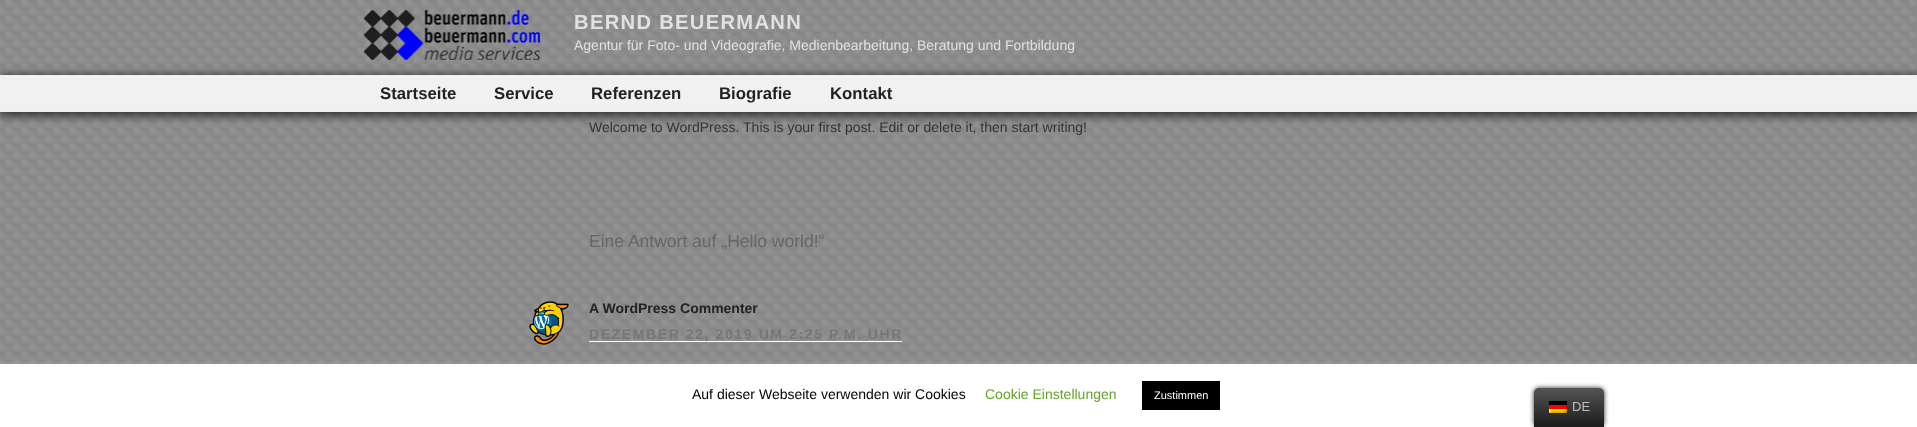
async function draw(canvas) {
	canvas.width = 1917;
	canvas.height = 427;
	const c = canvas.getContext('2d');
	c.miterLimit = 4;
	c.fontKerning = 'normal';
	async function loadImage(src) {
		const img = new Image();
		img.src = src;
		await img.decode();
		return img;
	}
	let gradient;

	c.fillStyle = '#7d7d7d';
	c.fillRect(0, 0, 1917, 427);
	c.drawImage(await loadImage('img1.png'), 0, 0, 1917, 75);
	c.drawImage(await loadImage('img2.png'), 364, 10, 176, 50);
	c.letterSpacing = '1.3px';
	c.font = 'bold 20.2px Liberation Sans';
	c.fillStyle = '#e1e1e1';
	c.fillText('BERND BEUERMANN', 574, 29);
	c.letterSpacing = '0px';
	c.font = '14px Liberation Sans';
	c.fillText('Agentur für Foto- und Videografie, Medienbearbeitung, Beratung und Fortbildung', 574, 50);
	c.drawImage(await loadImage('img3.png'), 0, 112, 1917, 252);
	c.fillStyle = '#333';
	c.filter = 'blur(5px)';
	c.beginPath();
	c.rect(0, 75, 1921, 41);
	c.fill();
	c.filter = 'none';
	for (const [x, y, w, h, color] of [
		[0, 76, 1917, 35, '#f1f1f1'],
		[0, 75, 1917, 1, '#eee'],
		[0, 111, 1917, 1, '#eee'],
	]) {
		c.fillStyle = color;
		c.fillRect(x, y, w, h);
	}
	c.font = 'bold 16.75px Liberation Sans';
	c.fillStyle = '#222';
	for (const [text, x, y] of [
		['Startseite', 380, 99],
		['Service', 494, 99],
		['Referenzen', 591, 99],
		['Biografie', 719, 99],
		['Kontakt', 830, 99],
	]) {
		c.fillText(text, x, y);
	}
	c.font = '14px Liberation Sans';
	c.fillStyle = '#333';
	c.fillText('Welcome to WordPress. This is your first post. Edit or delete it, then start writing!', 589, 132);
	c.font = '17.5px Liberation Sans';
	c.fillStyle = '#666';
	c.fillText('Eine Antwort auf „Hello world!“', 589, 247);
	c.drawImage(await loadImage('img4.png'), 529, 301, 40, 44);
	c.font = 'bold 14px Liberation Sans';
	c.fillStyle = '#222';
	c.fillText('A WordPress Commenter', 589, 313);
	c.fillStyle = '#fff';
	c.fillRect(589, 341, 313, 1);
	c.letterSpacing = '1.6px';
	c.fillStyle = '#767676';
	c.fillText('DEZEMBER 22, 2019 UM 2:25 P.M. UHR', 589, 339);
	c.fillStyle = '#acabab4d';
	c.filter = 'blur(5px)';
	c.beginPath();
	c.rect(0, 363, 1917, 63);
	c.fill();
	c.filter = 'none';
	c.fillStyle = '#fff';
	c.fillRect(0, 364, 1917, 63);
	c.letterSpacing = '0px';
	c.font = '14px Liberation Sans';
	c.fillStyle = '#000';
	c.fillText('Auf dieser Webseite verwenden wir Cookies', 692, 399);
	c.fillStyle = '#62a329';
	c.fillText('Cookie Einstellungen', 985, 399);
	c.fillStyle = '#000';
	c.fillRect(1142, 381, 78, 29);
	c.font = '11px Liberation Sans';
	c.fillStyle = '#fff';
	c.fillText('Zustimmen', 1154, 399);
	c.fillStyle = '#212121';
	c.filter = 'blur(2.5px)';
	c.beginPath();
	c.roundRect(1534, 388, 70, 39, 5);
	c.fill();
	c.filter = 'none';
	gradient = c.createLinearGradient(1569, 427, 1569, 388);
	gradient.addColorStop(0, '#1b1b1b');
	gradient.addColorStop(1, '#545454');
	c.fillStyle = gradient;
	c.beginPath();
	c.roundRect(1534, 388, 70, 39, [5, 5, 0, 0]);
	c.fill();
	c.drawImage(await loadImage('img5.png'), 1549, 401, 18, 12);
	c.font = '13px Liberation Sans';
	c.fillStyle = '#bdbdbd';
	c.fillText('DE', 1572, 411);
}

draw(document.querySelector('canvas'));
